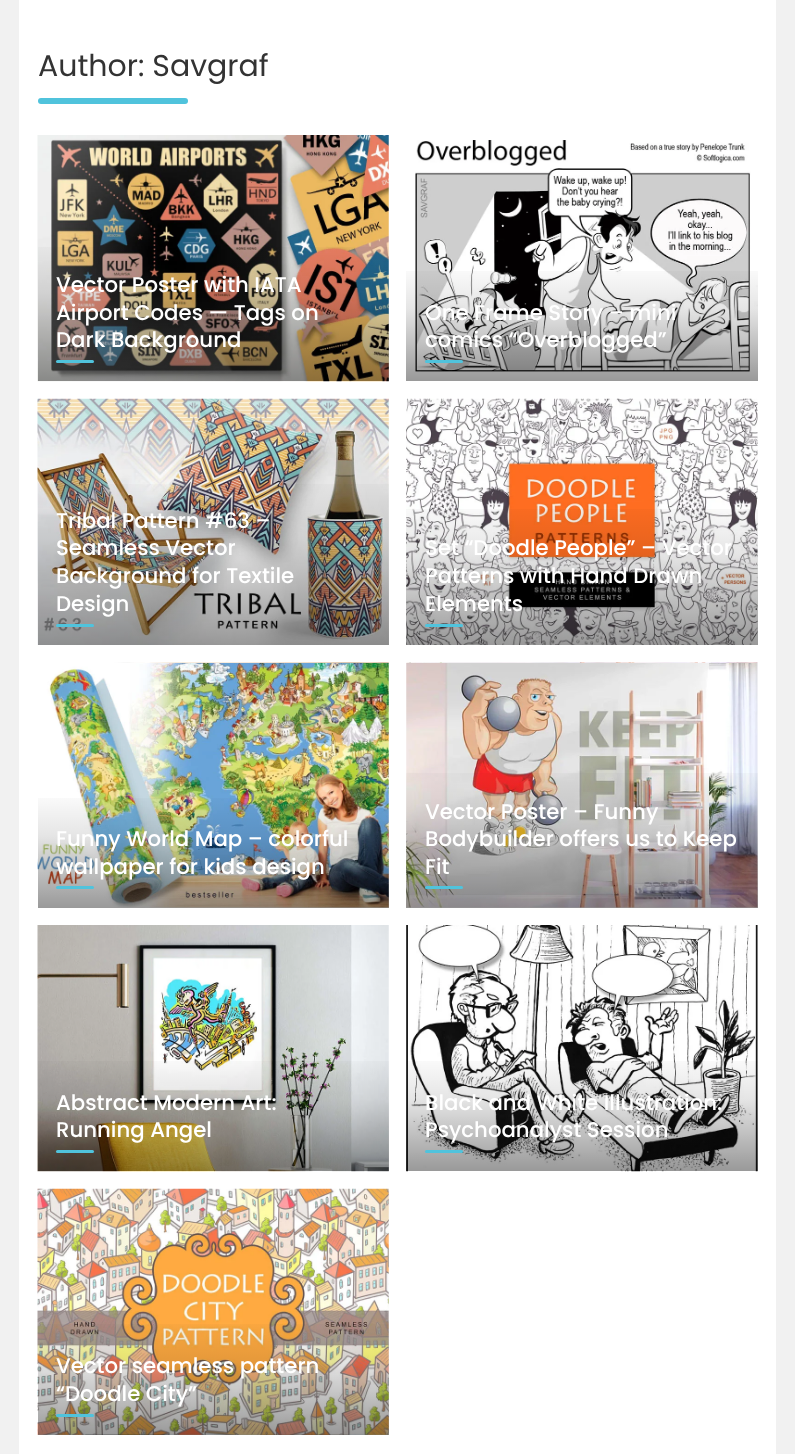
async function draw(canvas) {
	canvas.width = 795;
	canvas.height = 1454;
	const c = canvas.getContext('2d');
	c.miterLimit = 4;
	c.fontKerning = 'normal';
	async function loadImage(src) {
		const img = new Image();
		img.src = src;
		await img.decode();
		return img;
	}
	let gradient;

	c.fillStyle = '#f1f1f1';
	c.fillRect(0, 0, 795, 1454);
	c.fillStyle = '#fff';
	c.fillRect(19, 0, 757, 1454);
	c.font = '30px Poppins';
	c.fillStyle = '#333';
	c.fillText('Author: Savgraf', 38, 76);
	c.fillStyle = '#50c3dc';
	c.beginPath();
	c.roundRect(38, 98, 150, 6, 3);
	c.fill();
	c.drawImage(await loadImage('img1.png'), 37, 135, 352, 247);
	gradient = c.createLinearGradient(213, 234, 213, 381);
	gradient.addColorStop(0, '#00000000');
	gradient.addColorStop(0.4, '#0000001a');
	gradient.addColorStop(1, '#00000066');
	c.fillStyle = gradient;
	c.fillRect(38, 247, 351, 134);
	c.font = '500 21.25px Poppins';
	c.fillStyle = '#fff';
	for (const [text, x, y] of [
		['Vector Poster with IATA', 56, 292],
		['Airport Codes — Tags on', 56, 320],
		['Dark Background', 56, 347],
	]) {
		c.fillText(text, x, y);
	}
	c.fillStyle = '#50c3dc';
	c.beginPath();
	c.roundRect(56, 360, 38, 3, 1.5);
	c.fill();
	c.drawImage(await loadImage('img2.png'), 415, 140, 343, 232);
	gradient = c.createLinearGradient(582, 261, 582, 381);
	gradient.addColorStop(0, '#00000000');
	gradient.addColorStop(0.4, '#0000001a');
	gradient.addColorStop(1, '#00000066');
	c.fillStyle = gradient;
	c.fillRect(406, 271, 352, 110);
	c.fillStyle = '#fff';
	c.fillText('One Frame Story – mini', 425, 320);
	c.fillText('comics “Overblogged”', 425, 347);
	c.fillStyle = '#50c3dc';
	c.beginPath();
	c.roundRect(425, 360, 38, 3, 1.5);
	c.fill();
	c.drawImage(await loadImage('img3.png'), 37, 398, 352, 247);
	gradient = c.createLinearGradient(213, 469, 213, 645);
	gradient.addColorStop(0, '#00000000');
	gradient.addColorStop(0.4, '#0000001a');
	gradient.addColorStop(1, '#00000066');
	c.fillStyle = gradient;
	c.fillRect(38, 484, 351, 161);
	c.fillStyle = '#fff';
	for (const [text, x, y] of [
		['Tribal Pattern #63 –', 56, 528],
		['Seamless Vector', 56, 555],
		['Background for Textile', 56, 583],
		['Design', 56, 611],
	]) {
		c.fillText(text, x, y);
	}
	c.fillStyle = '#50c3dc';
	c.beginPath();
	c.roundRect(56, 624, 38, 3, 1.5);
	c.fill();
	c.drawImage(await loadImage('img4.png'), 406, 398, 352, 247);
	gradient = c.createLinearGradient(582, 496, 582, 645);
	gradient.addColorStop(0, '#00000000');
	gradient.addColorStop(0.4, '#0000001a');
	gradient.addColorStop(1, '#00000066');
	c.fillStyle = gradient;
	c.fillRect(406, 509, 352, 136);
	c.fillStyle = '#fff';
	for (const [text, x, y] of [
		['Set “Doodle People” – Vector', 425, 555],
		['Patterns with Hand Drawn', 425, 583],
		['Elements', 425, 611],
	]) {
		c.fillText(text, x, y);
	}
	c.fillStyle = '#50c3dc';
	c.beginPath();
	c.roundRect(425, 624, 38, 3, 1.5);
	c.fill();
	c.drawImage(await loadImage('img5.png'), 37, 662, 352, 246);
	gradient = c.createLinearGradient(213, 788, 213, 908);
	gradient.addColorStop(0, '#00000000');
	gradient.addColorStop(0.4, '#0000001a');
	gradient.addColorStop(1, '#00000066');
	c.fillStyle = gradient;
	c.fillRect(38, 798, 351, 110);
	c.fillStyle = '#fff';
	c.fillText('Funny World Map – colorful', 56, 846);
	c.fillText('wallpaper for kids design', 56, 874);
	c.fillStyle = '#50c3dc';
	c.beginPath();
	c.roundRect(56, 886, 38, 3, 1.5);
	c.fill();
	c.drawImage(await loadImage('img6.png'), 406, 662, 352, 246);
	gradient = c.createLinearGradient(582, 760, 582, 908);
	gradient.addColorStop(0, '#00000000');
	gradient.addColorStop(0.4, '#0000001a');
	gradient.addColorStop(1, '#00000066');
	c.fillStyle = gradient;
	c.fillRect(406, 773, 352, 135);
	c.fillStyle = '#fff';
	for (const [text, x, y] of [
		['Vector Poster – Funny', 425, 819],
		['Bodybuilder offers us to Keep', 425, 846],
		['Fit', 425, 874],
	]) {
		c.fillText(text, x, y);
	}
	c.fillStyle = '#50c3dc';
	c.beginPath();
	c.roundRect(425, 886, 38, 3, 1.5);
	c.fill();
	c.drawImage(await loadImage('img7.png'), 37, 925, 352, 247);
	gradient = c.createLinearGradient(213, 1051, 213, 1171);
	gradient.addColorStop(0, '#00000000');
	gradient.addColorStop(0.4, '#0000001a');
	gradient.addColorStop(1, '#00000066');
	c.fillStyle = gradient;
	c.fillRect(38, 1061, 351, 110);
	c.fillStyle = '#fff';
	c.fillText('Abstract Modern Art:', 56, 1110);
	c.fillText('Running Angel', 56, 1137);
	c.fillStyle = '#50c3dc';
	c.beginPath();
	c.roundRect(56, 1150, 38, 3, 1.5);
	c.fill();
	c.drawImage(await loadImage('img8.png'), 406, 925, 352, 247);
	gradient = c.createLinearGradient(582, 1051, 582, 1171);
	gradient.addColorStop(0, '#00000000');
	gradient.addColorStop(0.4, '#0000001a');
	gradient.addColorStop(1, '#00000066');
	c.fillStyle = gradient;
	c.fillRect(406, 1061, 352, 110);
	c.fillStyle = '#fff';
	c.fillText('Black and White Illustration:', 425, 1110);
	c.fillText('Psychoanalyst Session', 425, 1137);
	c.fillStyle = '#50c3dc';
	c.beginPath();
	c.roundRect(425, 1150, 38, 3, 1.5);
	c.fill();
	c.drawImage(await loadImage('img9.png'), 37, 1188, 352, 247);
	gradient = c.createLinearGradient(213, 1314, 213, 1435);
	gradient.addColorStop(0, '#00000000');
	gradient.addColorStop(0.4, '#0000001a');
	gradient.addColorStop(1, '#00000066');
	c.fillStyle = gradient;
	c.fillRect(38, 1324, 351, 111);
	c.fillStyle = '#fff';
	c.fillText('Vector seamless pattern', 56, 1373);
	c.fillText('“Doodle City”', 56, 1401);
	c.fillStyle = '#50c3dc';
	c.beginPath();
	c.roundRect(56, 1414, 38, 3, 1.5);
	c.fill();
}

draw(document.querySelector('canvas'));
